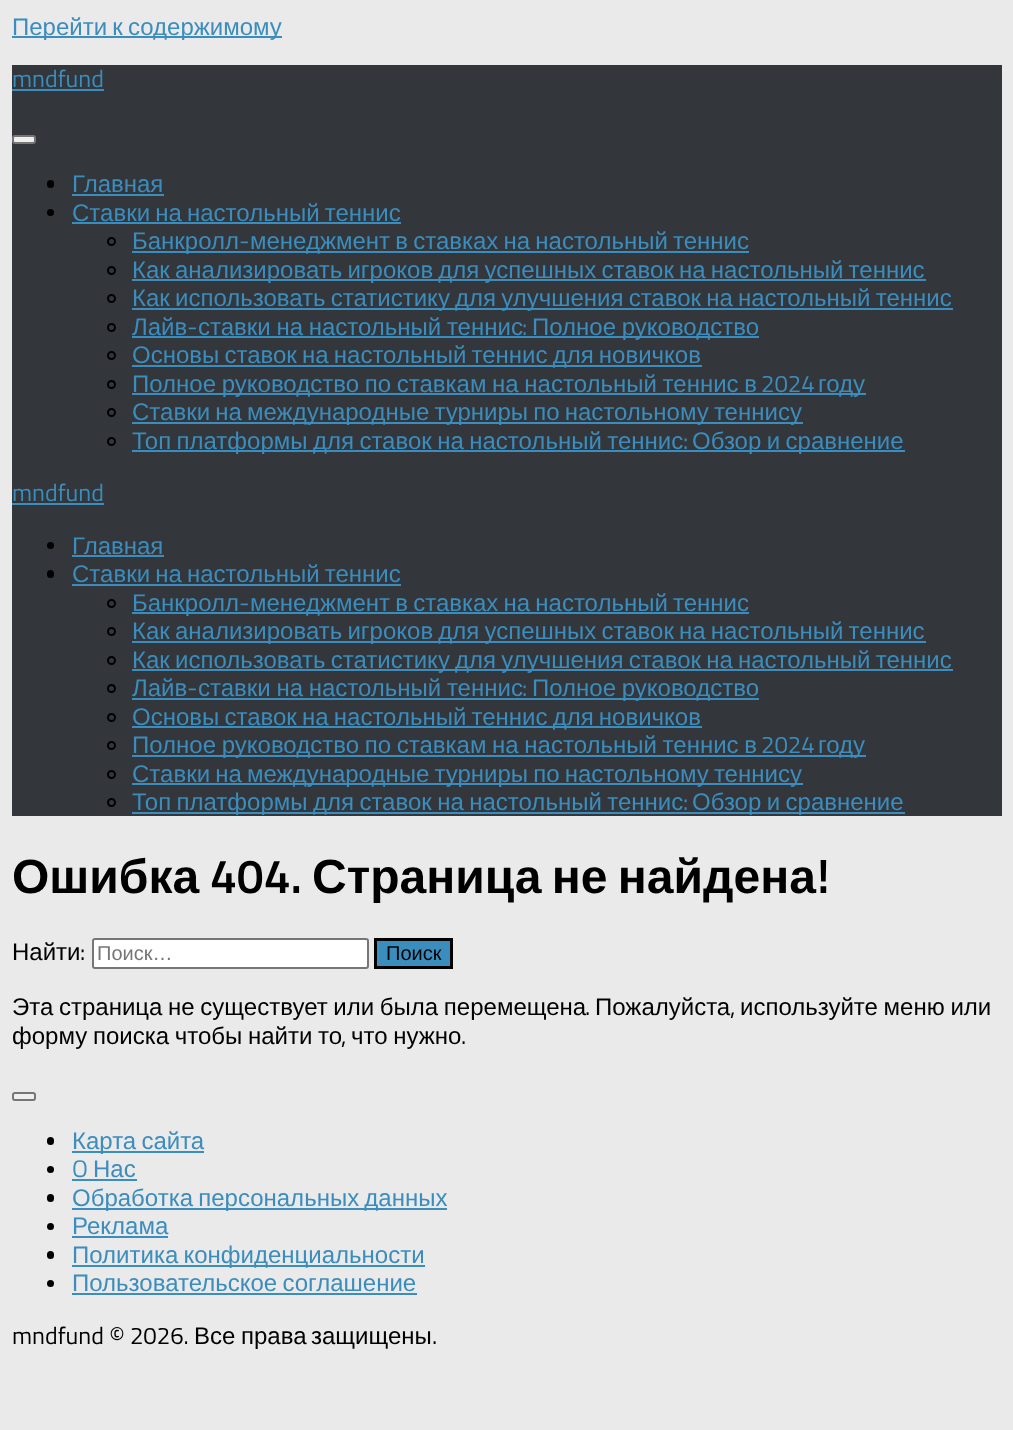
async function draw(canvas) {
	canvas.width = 1013;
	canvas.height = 1430;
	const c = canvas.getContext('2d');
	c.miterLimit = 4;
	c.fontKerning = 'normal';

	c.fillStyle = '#eaeaea';
	c.fillRect(0, 0, 1013, 1430);
	c.fillStyle = '#3b8dbd';
	c.fillRect(12, 36, 270, 2);
	c.wordSpacing = '-1.5px';
	c.font = '24px Liberation Sans';
	c.fillText('Перейти к содержимому', 12, 35);
	c.fillStyle = '#33363b';
	c.fillRect(12, 65, 990, 751);
	c.wordSpacing = '0px';
	c.font = '24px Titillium';
	c.fillStyle = '#3b8dbd';
	c.fillText('mndfund', 12, 87);
	c.fillRect(12, 89, 92, 2);
	c.fillStyle = '#efefef';
	c.beginPath();
	c.roundRect(13, 136, 22, 7, 2);
	c.fill();
	c.strokeStyle = '#767676';
	c.lineWidth = 2;
	c.stroke();
	c.fillStyle = '#000';
	c.beginPath();
	c.roundRect(47, 180, 7, 8, 3.5);
	c.fill();
	c.font = '24px Liberation Sans';
	c.fillStyle = '#3b8dbd';
	c.fillText('Главная', 72, 192);
	c.fillRect(72, 194, 92, 2);
	c.fillStyle = '#000';
	c.beginPath();
	c.arc(50.5, 212.5, 3.5, 0, 2 * Math.PI);
	c.fill();
	c.wordSpacing = '-1.5px';
	c.fillStyle = '#3b8dbd';
	c.fillText('Ставки на настольный теннис', 72, 221);
	c.fillRect(72, 222, 329, 2);
	c.beginPath();
	c.arc(111.5, 241.5, 3.5, 0, 2 * Math.PI);
	c.strokeStyle = '#000';
	c.stroke();
	c.fillRect(132, 251, 617, 2);
	c.wordSpacing = '0px';
	c.fillText('Банкролл', 132, 249);
	c.font = '24px Titillium';
	c.fillText('-', 239, 249);
	c.wordSpacing = '-1.5px';
	c.font = '24px Liberation Sans';
	c.fillText('менеджмент в ставках на настольный теннис', 250, 249);
	c.beginPath();
	c.arc(111.5, 270.5, 3.5, 0, 2 * Math.PI);
	c.stroke();
	c.fillRect(132, 279, 794, 2);
	c.fillText('Как анализировать игроков для успешных ставок на настольный теннис', 132, 278);
	c.beginPath();
	c.arc(111.5, 298.5, 3.5, 0, 2 * Math.PI);
	c.stroke();
	c.fillRect(132, 308, 821, 2);
	c.fillText('Как использовать статистику для улучшения ставок на настольный теннис', 132, 306);
	c.beginPath();
	c.arc(111.5, 327.5, 3.5, 0, 2 * Math.PI);
	c.stroke();
	c.wordSpacing = '0px';
	c.fillText('Лайв', 132, 335);
	c.font = '24px Titillium';
	c.fillText('-', 187, 335);
	c.wordSpacing = '-1px';
	c.font = '24px Liberation Sans';
	c.fillText('ставки на настольный теннис', 198, 335);
	c.wordSpacing = '0px';
	c.font = '24px Titillium';
	c.fillText(':', 522, 335);
	c.fillRect(132, 336, 627, 2);
	c.wordSpacing = '-1px';
	c.font = '24px Liberation Sans';
	c.fillText('Полное руководство', 532, 335);
	c.beginPath();
	c.arc(111.5, 355.5, 3.5, 0, 2 * Math.PI);
	c.stroke();
	c.fillRect(132, 365, 570, 2);
	c.wordSpacing = '-1.5px';
	c.fillText('Основы ставок на настольный теннис для новичков', 132, 363);
	c.beginPath();
	c.arc(111.5, 384.5, 3.5, 0, 2 * Math.PI);
	c.stroke();
	c.fillRect(132, 393, 734, 2);
	c.wordSpacing = '-1px';
	c.fillText('Полное руководство по ставкам на настольный теннис в', 132, 392);
	c.wordSpacing = '0px';
	c.font = '24px Titillium';
	c.fillText('2024', 761, 392);
	c.font = '24px Liberation Sans';
	c.fillText('году', 818, 392);
	c.beginPath();
	c.arc(111.5, 412.5, 3.5, 0, 2 * Math.PI);
	c.stroke();
	c.fillRect(132, 422, 671, 2);
	c.wordSpacing = '-1.5px';
	c.fillText('Ставки на международные турниры по настольному теннису', 132, 420);
	c.beginPath();
	c.arc(111.5, 441.5, 3.5, 0, 2 * Math.PI);
	c.stroke();
	c.fillRect(132, 450, 773, 2);
	c.wordSpacing = '-1.25px';
	c.fillText('Топ платформы для ставок на настольный теннис', 132, 449);
	c.wordSpacing = '0px';
	c.font = '24px Titillium';
	c.fillText(':', 683, 449);
	c.wordSpacing = '-1.25px';
	c.font = '24px Liberation Sans';
	c.fillText('Обзор и сравнение', 692, 449);
	c.wordSpacing = '0px';
	c.font = '24px Titillium';
	c.fillText('mndfund', 12, 501);
	c.fillRect(12, 503, 92, 2);
	c.fillStyle = '#000';
	c.beginPath();
	c.arc(50.5, 545.5, 3.5, 0, 2 * Math.PI);
	c.fill();
	c.font = '24px Liberation Sans';
	c.fillStyle = '#3b8dbd';
	c.fillText('Главная', 72, 554);
	c.fillRect(72, 555, 92, 2);
	c.fillStyle = '#000';
	c.beginPath();
	c.roundRect(47, 570, 7, 8, 3.5);
	c.fill();
	c.wordSpacing = '-1.5px';
	c.fillStyle = '#3b8dbd';
	c.fillText('Ставки на настольный теннис', 72, 582);
	c.fillRect(72, 584, 329, 2);
	c.beginPath();
	c.arc(111.5, 603.5, 3.5, 0, 2 * Math.PI);
	c.stroke();
	c.fillRect(132, 612, 617, 2);
	c.wordSpacing = '0px';
	c.fillText('Банкролл', 132, 611);
	c.font = '24px Titillium';
	c.fillText('-', 239, 611);
	c.wordSpacing = '-1.5px';
	c.font = '24px Liberation Sans';
	c.fillText('менеджмент в ставках на настольный теннис', 250, 611);
	c.beginPath();
	c.arc(111.5, 631.5, 3.5, 0, 2 * Math.PI);
	c.stroke();
	c.fillRect(132, 641, 794, 2);
	c.fillText('Как анализировать игроков для успешных ставок на настольный теннис', 132, 639);
	c.beginPath();
	c.arc(111.5, 660.5, 3.5, 0, 2 * Math.PI);
	c.stroke();
	c.fillRect(132, 669, 821, 2);
	c.fillText('Как использовать статистику для улучшения ставок на настольный теннис', 132, 668);
	c.beginPath();
	c.arc(111.5, 688.5, 3.5, 0, 2 * Math.PI);
	c.stroke();
	c.wordSpacing = '0px';
	c.fillText('Лайв', 132, 696);
	c.font = '24px Titillium';
	c.fillText('-', 187, 696);
	c.wordSpacing = '-1px';
	c.font = '24px Liberation Sans';
	c.fillText('ставки на настольный теннис', 198, 696);
	c.wordSpacing = '0px';
	c.font = '24px Titillium';
	c.fillText(':', 522, 696);
	c.fillRect(132, 698, 627, 2);
	c.wordSpacing = '-1px';
	c.font = '24px Liberation Sans';
	c.fillText('Полное руководство', 532, 696);
	c.beginPath();
	c.arc(111.5, 717.5, 3.5, 0, 2 * Math.PI);
	c.stroke();
	c.fillRect(132, 726, 570, 2);
	c.wordSpacing = '-1.5px';
	c.fillText('Основы ставок на настольный теннис для новичков', 132, 725);
	c.beginPath();
	c.arc(111.5, 745.5, 3.5, 0, 2 * Math.PI);
	c.stroke();
	c.fillRect(132, 755, 734, 2);
	c.wordSpacing = '-1px';
	c.fillText('Полное руководство по ставкам на настольный теннис в', 132, 753);
	c.wordSpacing = '0px';
	c.font = '24px Titillium';
	c.fillText('2024', 761, 753);
	c.font = '24px Liberation Sans';
	c.fillText('году', 818, 753);
	c.beginPath();
	c.arc(111.5, 774.5, 3.5, 0, 2 * Math.PI);
	c.stroke();
	c.fillRect(132, 783, 671, 2);
	c.wordSpacing = '-1.5px';
	c.fillText('Ставки на международные турниры по настольному теннису', 132, 782);
	c.beginPath();
	c.arc(111.5, 802.5, 3.5, 0, 2 * Math.PI);
	c.stroke();
	c.fillRect(132, 812, 773, 2);
	c.wordSpacing = '-1.25px';
	c.fillText('Топ платформы для ставок на настольный теннис', 132, 810);
	c.wordSpacing = '0px';
	c.font = '24px Titillium';
	c.fillText(':', 683, 810);
	c.wordSpacing = '-1.25px';
	c.font = '24px Liberation Sans';
	c.fillText('Обзор и сравнение', 692, 810);
	c.wordSpacing = '0px';
	c.font = 'bold 48px Liberation Sans';
	c.fillStyle = '#000';
	c.fillText('Ошибка', 12, 893);
	c.font = '600 48px Titillium';
	c.fillText('404.', 210, 893);
	c.wordSpacing = '-3px';
	c.font = 'bold 48px Liberation Sans';
	c.fillText('Страница не найдена', 312, 893);
	c.wordSpacing = '0px';
	c.font = '600 48px Titillium';
	c.fillText('!', 817, 893);
	c.font = '24px Liberation Sans';
	c.fillText('Найти', 12, 960);
	c.font = '24px Titillium';
	c.fillText(':', 80, 960);
	c.fillStyle = '#fff';
	c.beginPath();
	c.roundRect(93, 939, 275, 29, 2);
	c.fill();
	c.strokeStyle = '#767676';
	c.stroke();
	c.font = '20px Liberation Sans';
	c.fillStyle = '#757575';
	c.fillText('Поиск…', 97, 960);
	c.fillStyle = '#3b8dbd';
	c.beginPath();
	c.rect(375.5, 939.5, 76, 28);
	c.fill();
	c.strokeStyle = '#000';
	c.lineWidth = 3;
	c.stroke();
	c.fillStyle = '#000';
	c.fillText('Поиск', 386, 960);
	c.wordSpacing = '-1px';
	c.font = '24px Liberation Sans';
	c.fillText('Эта страница не существует или была перемещена', 12, 1015);
	c.wordSpacing = '0px';
	c.font = '24px Titillium';
	c.fillText('.', 585, 1015);
	c.font = '24px Liberation Sans';
	c.fillText('Пожалуйста', 595, 1015);
	c.font = '24px Titillium';
	c.fillText(',', 730, 1015);
	c.wordSpacing = '-1px';
	c.font = '24px Liberation Sans';
	c.fillText('используйте меню или', 740, 1015);
	c.fillText('форму поиска чтобы найти то', 12, 1044);
	c.wordSpacing = '0px';
	c.font = '24px Titillium';
	c.fillText(',', 341, 1044);
	c.wordSpacing = '-1px';
	c.font = '24px Liberation Sans';
	c.fillText('что нужно', 351, 1044);
	c.wordSpacing = '0px';
	c.font = '24px Titillium';
	c.fillText('.', 461, 1044);
	c.fillStyle = '#efefef';
	c.beginPath();
	c.roundRect(13, 1093, 22, 7, 2);
	c.fill();
	c.strokeStyle = '#767676';
	c.lineWidth = 2;
	c.stroke();
	c.fillStyle = '#000';
	c.beginPath();
	c.roundRect(47, 1137, 7, 8, 3.5);
	c.fill();
	c.fillStyle = '#3b8dbd';
	c.fillRect(72, 1151, 132, 2);
	c.wordSpacing = '-1.5px';
	c.font = '24px Liberation Sans';
	c.fillText('Карта сайта', 72, 1149);
	c.fillStyle = '#000';
	c.beginPath();
	c.arc(50.5, 1169.5, 3.5, 0, 2 * Math.PI);
	c.fill();
	c.wordSpacing = '0px';
	c.font = '24px Titillium';
	c.fillStyle = '#3b8dbd';
	c.fillText('O', 72, 1177);
	c.fillRect(72, 1179, 65, 2);
	c.font = '24px Liberation Sans';
	c.fillText('Нас', 93, 1177);
	c.fillStyle = '#000';
	c.beginPath();
	c.roundRect(47, 1194, 7, 8, 3.5);
	c.fill();
	c.fillStyle = '#3b8dbd';
	c.fillRect(72, 1208, 375, 2);
	c.wordSpacing = '-1.5px';
	c.fillText('Обработка персональных данных', 72, 1206);
	c.fillStyle = '#000';
	c.beginPath();
	c.arc(50.5, 1226.5, 3.5, 0, 2 * Math.PI);
	c.fill();
	c.wordSpacing = '0px';
	c.fillStyle = '#3b8dbd';
	c.fillText('Реклама', 72, 1234);
	c.fillRect(72, 1236, 96, 2);
	c.fillStyle = '#000';
	c.beginPath();
	c.roundRect(47, 1251, 7, 8, 3.5);
	c.fill();
	c.fillStyle = '#3b8dbd';
	c.fillRect(72, 1265, 353, 2);
	c.wordSpacing = '-1.5px';
	c.fillText('Политика конфиденциальности', 72, 1263);
	c.fillStyle = '#000';
	c.beginPath();
	c.arc(50.5, 1283.5, 3.5, 0, 2 * Math.PI);
	c.fill();
	c.fillStyle = '#3b8dbd';
	c.fillText('Пользовательское соглашение', 72, 1291);
	c.fillRect(72, 1293, 345, 2);
	c.wordSpacing = '0px';
	c.font = '24px Titillium';
	c.fillStyle = '#000';
	c.fillText('mndfund © 2026.', 12, 1344);
	c.font = '24px Liberation Sans';
	for (const [text, x, y] of [
		['Все', 194, 1344],
		['права', 241, 1344],
		['защищены', 311, 1344],
	]) {
		c.fillText(text, x, y);
	}
	c.font = '24px Titillium';
	c.fillText('.', 432, 1344);
}

draw(document.querySelector('canvas'));
